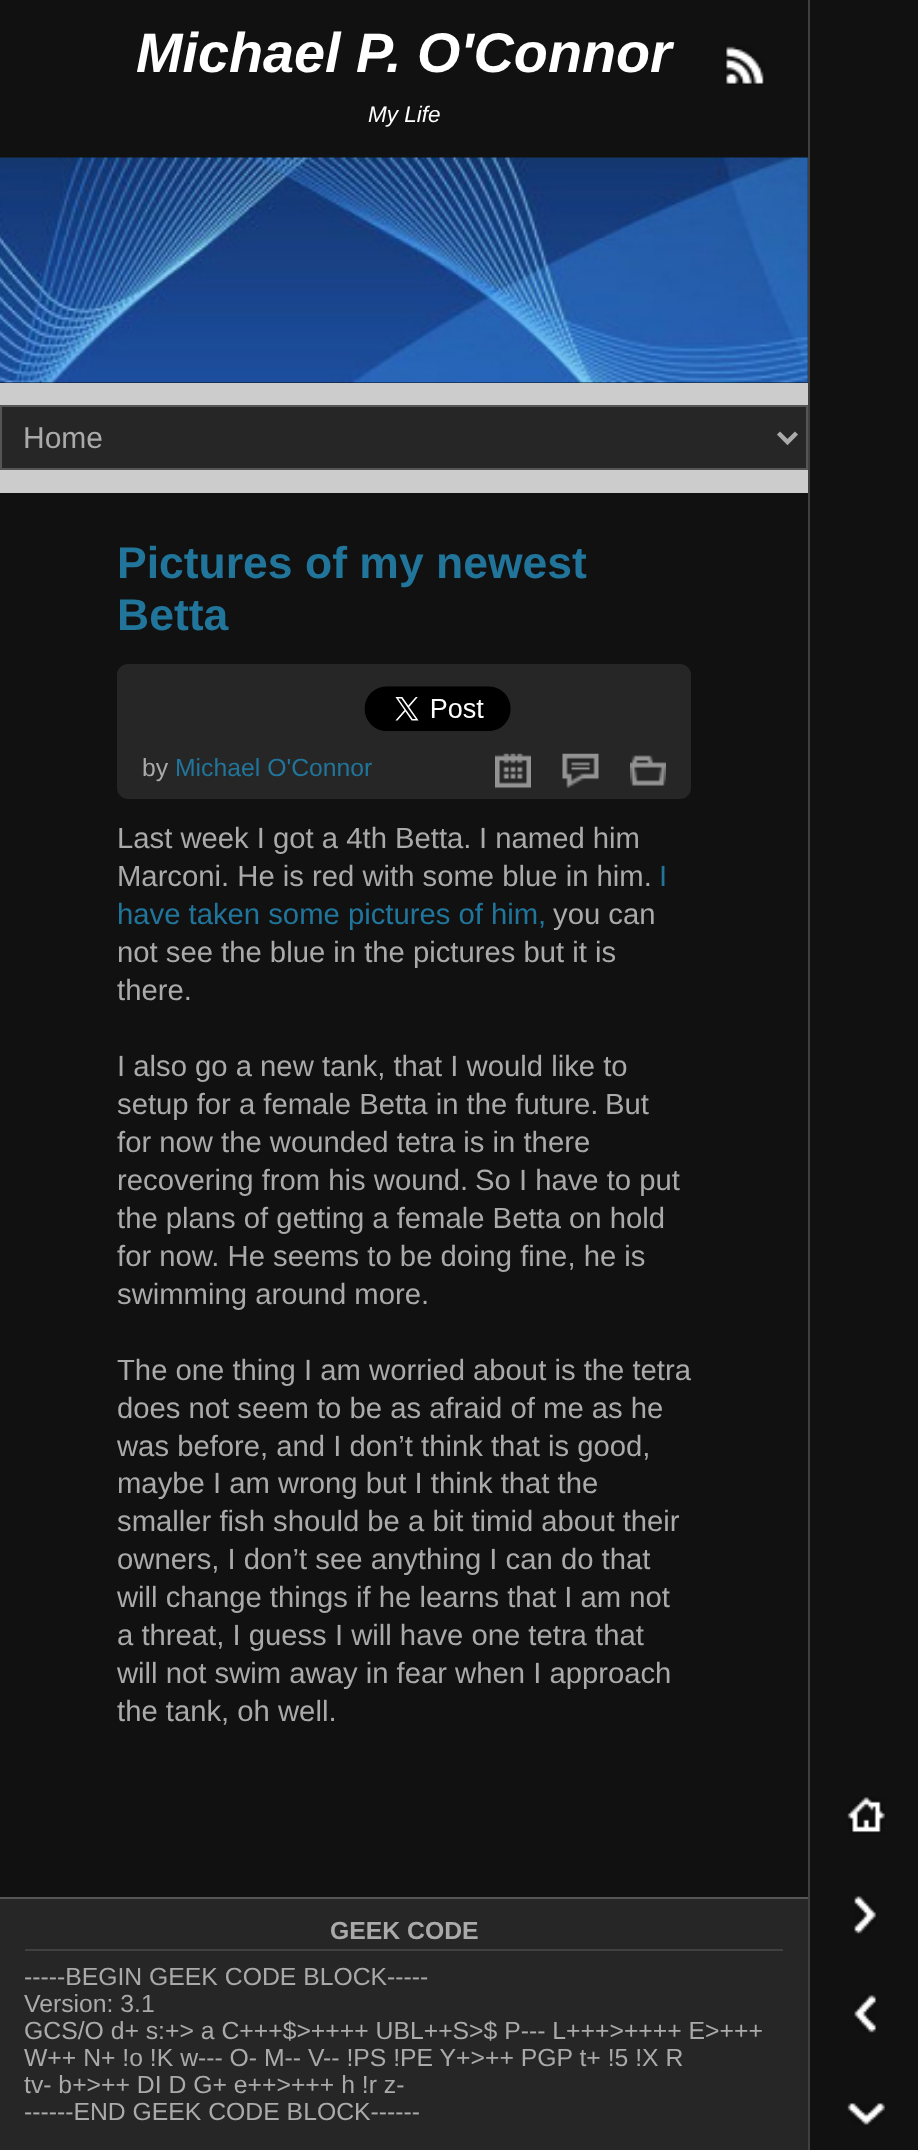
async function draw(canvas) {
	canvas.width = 918;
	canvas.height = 2150;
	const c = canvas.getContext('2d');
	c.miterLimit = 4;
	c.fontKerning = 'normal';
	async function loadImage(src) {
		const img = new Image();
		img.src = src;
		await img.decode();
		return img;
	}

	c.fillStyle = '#111';
	c.fillRect(0, 0, 918, 2150);
	c.fillStyle = '#404040';
	c.fillRect(808, 0, 2, 2150);
	c.font = 'italic bold 55.75px Liberation Sans';
	c.fillStyle = '#fff';
	c.fillText('Michael P. O\'Connor', 136, 72);
	c.drawImage(await loadImage('img1.png'), 725, 46, 40, 39);
	c.font = 'italic 22.5px Liberation Sans';
	c.fillText('My Life', 368, 122);
	c.drawImage(await loadImage('img2.png'), 0, 157, 808, 226);
	c.fillStyle = '#ccc';
	c.fillRect(0, 383, 808, 22);
	c.fillRect(0, 470, 808, 23);
	c.fillStyle = '#262626';
	c.beginPath();
	c.rect(1, 406, 806, 63);
	c.fill();
	c.strokeStyle = '#555';
	c.lineWidth = 2;
	c.stroke();
	c.beginPath();
	c.moveTo(778.5, 433);
	c.lineTo(787.5, 442);
	c.lineTo(796.5, 433);
	c.strokeStyle = '#aaa';
	c.lineWidth = 4.5;
	c.stroke();
	c.font = '30px Liberation Sans';
	c.fillStyle = '#aaa';
	c.fillText('Home', 23, 448);
	c.font = 'bold 44.5px Liberation Sans';
	c.fillStyle = '#21759b';
	c.fillText('Pictures of my newest', 117, 578);
	c.fillText('Betta', 117, 630);
	c.fillStyle = '#262626';
	c.beginPath();
	c.roundRect(117, 664, 574, 92, 11);
	c.fill();
	c.drawImage(await loadImage('img3.png'), 364, 686, 147, 45);
	c.beginPath();
	c.roundRect(117, 745, 574, 54, [0, 0, 11, 11]);
	c.fill();
	c.font = '24.75px Liberation Sans';
	c.fillStyle = '#aaa';
	c.fillText('by', 142, 776);
	c.fillStyle = '#21759b';
	c.fillText('Michael O\'Connor', 175, 776);
	c.drawImage(await loadImage('img4.png'), 495, 753, 36, 36);
	c.drawImage(await loadImage('img5.png'), 562, 753, 37, 35);
	c.drawImage(await loadImage('img6.png'), 630, 755, 36, 31);
	c.font = '29.25px Liberation Sans';
	c.fillStyle = '#aaa';
	for (const [text, x, y] of [
		['Last week I got a 4th Betta.', 117, 848],
		['I named him', 479, 848],
		['Marconi. He is red with some blue in him.', 117, 886],
	]) {
		c.fillText(text, x, y);
	}
	c.fillStyle = '#21759b';
	c.fillText('I', 659, 886);
	c.fillText('have taken some pictures of him,', 117, 924);
	c.fillStyle = '#aaa';
	for (const [text, x, y] of [
		['you can', 553, 924],
		['not see the blue in the pictures but it is', 117, 962],
		['there.', 117, 1000],
		['I also go a new tank, that I would like to', 117, 1076],
		['setup for a female Betta in the future.', 117, 1114],
		['But', 605, 1114],
		['for now the wounded tetra is in there', 117, 1152],
		['recovering from his wound.', 117, 1190],
		['So I have to put', 475, 1190],
		['the plans of getting a female Betta on hold', 117, 1228],
		['for now. He seems to be doing fine, he is', 117, 1266],
		['swimming around more.', 117, 1304],
		['The one thing I am worried about is the tetra', 117, 1380],
		['does not seem to be as afraid of me as he', 117, 1418],
		['was before, and I don’t think that is good,', 117, 1456],
		['maybe I am wrong but I think that the', 117, 1493],
		['smaller fish should be a bit timid about their', 117, 1531],
		['owners, I don’t see anything I can do that', 117, 1569],
		['will change things if he learns that I am not', 117, 1607],
		['a threat, I guess I will have one tetra that', 117, 1645],
		['will not swim away in fear when I approach', 117, 1683],
		['the tank, oh well.', 117, 1721],
	]) {
		c.fillText(text, x, y);
	}
	for (const [x, y, w, h, color] of [
		[0, 1899, 808, 251, '#262626'],
		[0, 1897, 808, 2, '#555'],
		[25, 1949, 758, 2, '#404040'],
	]) {
		c.fillStyle = color;
		c.fillRect(x, y, w, h);
	}
	c.font = 'bold 24.75px Liberation Sans';
	c.fillStyle = '#aaa';
	c.fillText('GEEK CODE', 330, 1939);
	c.font = '24.75px Liberation Sans';
	for (const [text, x, y] of [
		['-----BEGIN GEEK CODE BLOCK-----', 24, 1985],
		['Version: 3.1', 24, 2012],
		['GCS/O d+ s:+> a C+++$>++++ UBL++S>$ P--- L+++>++++ E>+++', 24, 2039],
		['W++ N+ !o !K w--- O- M-- V-- !PS !PE Y+>++ PGP t+ !5 !X R', 24, 2066],
		['tv- b+>++ DI D G+ e++>+++ h !r z-', 24, 2093],
		['------END GEEK CODE BLOCK------', 24, 2120],
	]) {
		c.fillText(text, x, y);
	}
	c.drawImage(await loadImage('img7.png'), 847, 1797, 38, 37);
	c.drawImage(await loadImage('img8.png'), 854, 1896, 22, 38);
	c.drawImage(await loadImage('img9.png'), 854, 1995, 22, 38);
	c.drawImage(await loadImage('img10.png'), 847, 2103, 38, 22);
}

draw(document.querySelector('canvas'));
